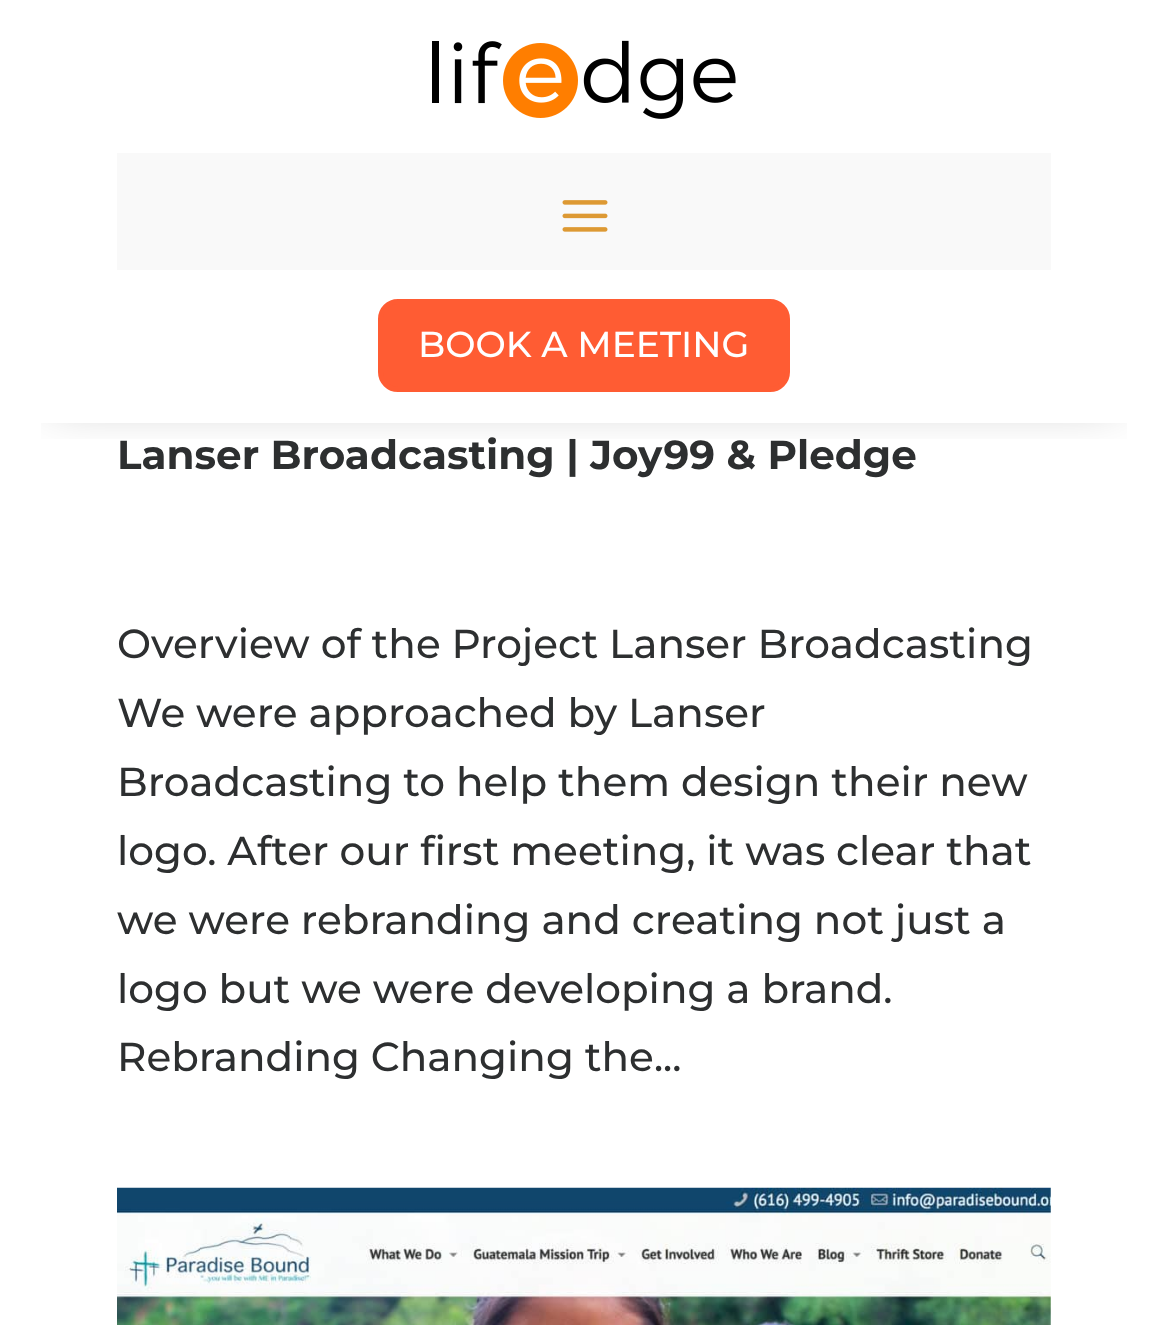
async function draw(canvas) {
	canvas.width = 1166;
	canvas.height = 1325;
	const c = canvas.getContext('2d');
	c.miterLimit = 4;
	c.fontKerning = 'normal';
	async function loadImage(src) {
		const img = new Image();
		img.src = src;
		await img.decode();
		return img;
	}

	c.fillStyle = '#fff';
	c.fillRect(0, 0, 1166, 1325);
	c.save();
	c.beginPath();
	c.rect(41, 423, 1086, 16);
	c.clip();
	c.fillStyle = '#0000004d';
	c.filter = 'blur(25px)';
	c.beginPath();
	c.rect(50, 77, 1068, 324);
	c.fill();
	c.filter = 'none';
	c.restore();
	c.drawImage(await loadImage('img1.png'), 432, 40, 304, 79);
	c.fillStyle = '#f9f9f9';
	c.fillRect(117, 153, 934, 117);
	c.drawImage(await loadImage('img2.png'), 562, 200, 46, 32);
	c.fillStyle = '#ff5c33';
	c.beginPath();
	c.roundRect(380.5, 301.5, 407, 88, 17.5);
	c.fill();
	c.strokeStyle = '#ff5c33';
	c.lineWidth = 5;
	c.stroke();
	c.font = '500 36px Montserrat';
	c.fillStyle = '#fff';
	c.fillText('BOOK A MEETING', 418, 357);
	c.font = 'bold 40.5px Montserrat';
	c.fillStyle = '#2d2f30';
	c.fillText('Lanser Broadcasting | Joy99 & Pledge', 117, 469);
	c.font = '500 40.5px Montserrat';
	for (const [text, x, y] of [
		['Overview of the Project Lanser Broadcasting', 117, 658],
		['We were approached by Lanser', 117, 727],
		['Broadcasting to help them design their new', 117, 796],
		['logo. After our first meeting, it was clear that', 117, 865],
		['we were rebranding and creating not just a', 117, 934],
		['logo but we were developing a brand.', 117, 1003],
		['Rebranding Changing the...', 117, 1071],
	]) {
		c.fillText(text, x, y);
	}
	c.drawImage(await loadImage('img3.png'), 117, 1187, 934, 138);
}

draw(document.querySelector('canvas'));
